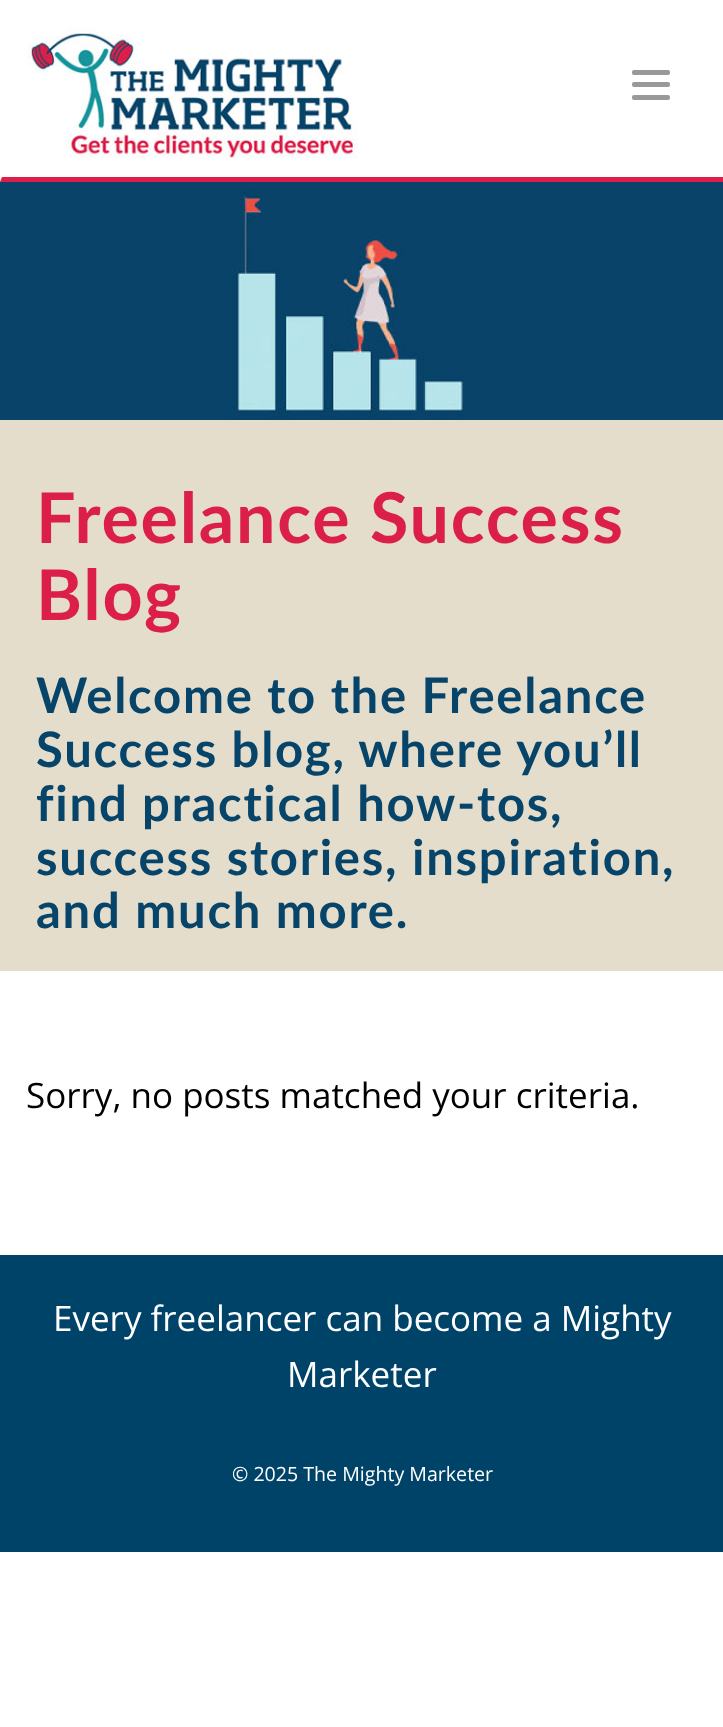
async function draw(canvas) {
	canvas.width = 723;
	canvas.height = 1727;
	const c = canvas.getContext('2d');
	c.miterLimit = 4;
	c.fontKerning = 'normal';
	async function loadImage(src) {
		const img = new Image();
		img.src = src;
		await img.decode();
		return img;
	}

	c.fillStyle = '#fff';
	c.fillRect(0, 0, 723, 1727);
	c.fillStyle = '#dc1e49';
	c.beginPath();
	c.moveTo(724, 182);
	c.lineTo(0, 182);
	c.lineTo(2, 177);
	c.lineTo(723, 177);
	c.closePath();
	c.fill();
	c.drawImage(await loadImage('img1.png'), 27, 28, 331, 131);
	c.fillStyle = '#999';
	c.beginPath();
	c.roundRect(632, 70, 38, 5, 2);
	c.fill();
	c.beginPath();
	c.roundRect(632, 82, 38, 5, 2);
	c.fill();
	c.beginPath();
	c.roundRect(632, 95, 38, 5, 2);
	c.fill();
	c.fillStyle = '#e4ddcb';
	c.fillRect(0, 420, 723, 551);
	c.drawImage(await loadImage('img2.png'), 0, 182, 723, 238);
	c.letterSpacing = '1.75px';
	c.font = 'bold 70px Lato';
	c.fillStyle = '#db1f48';
	c.fillText('Freelance Success', 36, 543);
	c.fillText('Blog', 36, 620);
	c.font = 'bold 49px Lato';
	c.fillStyle = '#074469';
	for (const [text, x, y] of [
		['Welcome to the Freelance', 36, 713],
		['Success blog, where you’ll', 36, 767],
		['find practical how-tos,', 36, 821],
		['success stories, inspiration,', 36, 875],
		['and much more.', 36, 928],
	]) {
		c.fillText(text, x, y);
	}
	c.letterSpacing = '0px';
	c.font = '35px Open Sans';
	c.fillStyle = '#000';
	c.fillText('Sorry, no posts matched your criteria.', 26, 1108);
	c.fillStyle = '#004369';
	c.fillRect(0, 1255, 723, 297);
	c.fillStyle = '#fff';
	c.fillText('Every freelancer can become a Mighty', 53, 1331);
	c.fillText('Marketer', 287, 1387);
	c.font = '19.6px Open Sans';
	c.fillText('© 2025 The Mighty Marketer', 232, 1481);
}

draw(document.querySelector('canvas'));
